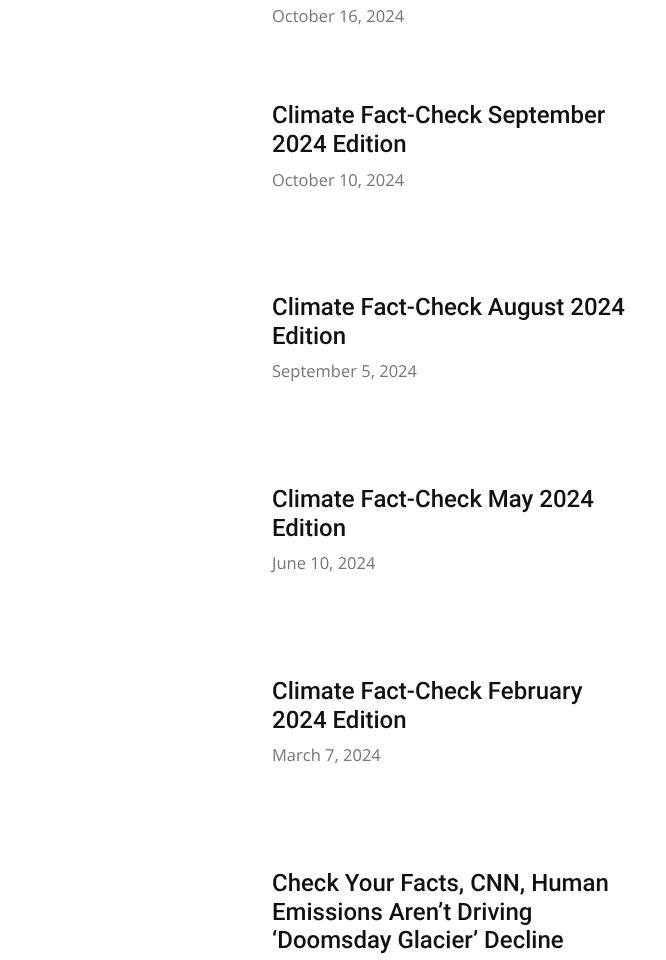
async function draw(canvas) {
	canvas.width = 666;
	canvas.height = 960;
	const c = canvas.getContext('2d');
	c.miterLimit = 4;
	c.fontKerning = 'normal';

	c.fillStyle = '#fff';
	c.fillRect(0, 0, 666, 960);
	c.font = '16.5px Open Sans';
	c.fillStyle = '#767676';
	c.fillText('October 16, 2024', 272, 22);
	c.font = '500 24px Roboto';
	c.fillStyle = '#111';
	c.fillText('Climate Fact-Check September', 272, 123);
	c.fillText('2024 Edition', 272, 152);
	c.font = '16.5px Open Sans';
	c.fillStyle = '#767676';
	c.fillText('October 10, 2024', 272, 186);
	c.font = '500 24px Roboto';
	c.fillStyle = '#111';
	c.fillText('Climate Fact-Check August 2024', 272, 315);
	c.fillText('Edition', 272, 344);
	c.font = '16.5px Open Sans';
	c.fillStyle = '#767676';
	c.fillText('September 5, 2024', 272, 377);
	c.font = '500 24px Roboto';
	c.fillStyle = '#111';
	c.fillText('Climate Fact-Check May 2024', 272, 507);
	c.fillText('Edition', 272, 536);
	c.font = '16.5px Open Sans';
	c.fillStyle = '#767676';
	c.fillText('June 10, 2024', 272, 569);
	c.font = '500 24px Roboto';
	c.fillStyle = '#111';
	c.fillText('Climate Fact-Check February', 272, 699);
	c.fillText('2024 Edition', 272, 728);
	c.font = '16.5px Open Sans';
	c.fillStyle = '#767676';
	c.fillText('March 7, 2024', 272, 761);
	c.font = '500 24px Roboto';
	c.fillStyle = '#111';
	for (const [text, x, y] of [
		['Check Your Facts, CNN, Human', 272, 891],
		['Emissions Aren’t Driving', 272, 920],
		['‘Doomsday Glacier’ Decline', 272, 948],
	]) {
		c.fillText(text, x, y);
	}
}

draw(document.querySelector('canvas'));
